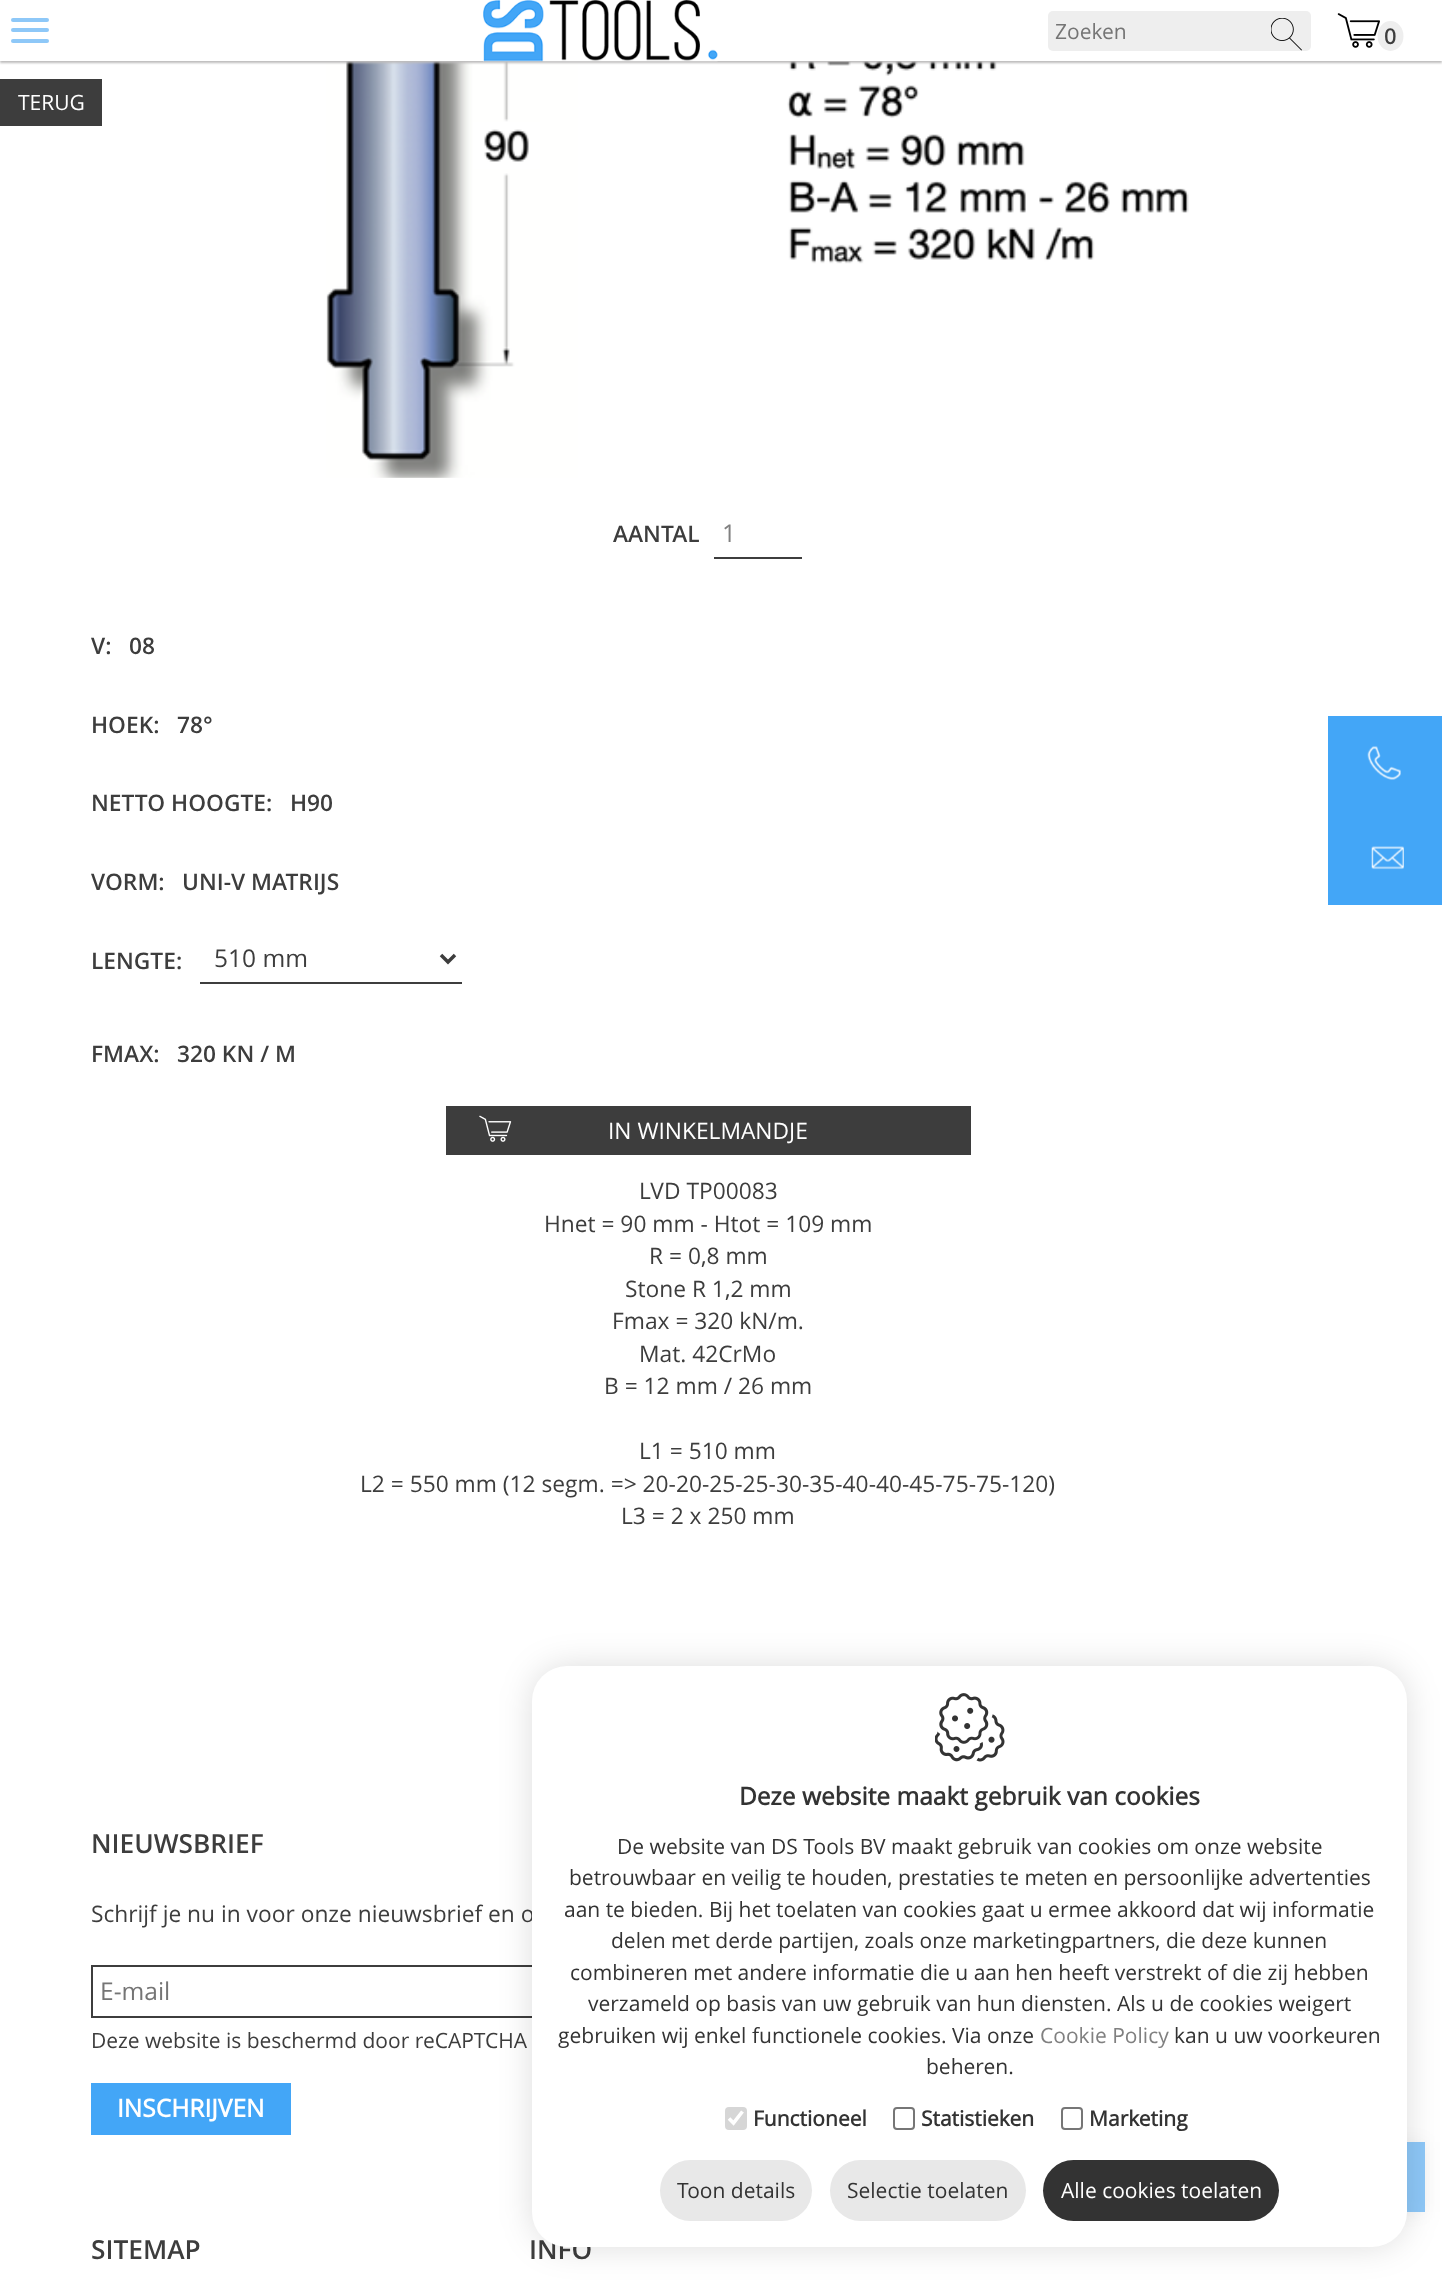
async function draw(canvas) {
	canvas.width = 1442;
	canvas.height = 2282;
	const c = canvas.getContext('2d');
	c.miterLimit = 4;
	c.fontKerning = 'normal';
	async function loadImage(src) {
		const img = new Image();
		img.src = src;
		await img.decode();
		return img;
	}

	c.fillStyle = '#fff';
	c.fillRect(0, 0, 1442, 2282);
	c.drawImage(await loadImage('img4.png'), 326, 61, 863, 417);
	c.fillStyle = '#bdbcbc';
	c.filter = 'blur(1px)';
	c.beginPath();
	c.rect(0, 2, 1442, 61);
	c.fill();
	c.filter = 'none';
	c.fillStyle = '#fff';
	c.fillRect(0, 0, 1442, 61);
	c.fillStyle = '#8ec8f8';
	c.beginPath();
	c.roundRect(11, 18, 38, 4, 2);
	c.fill();
	c.beginPath();
	c.roundRect(11, 28, 38, 4, 2);
	c.fill();
	c.beginPath();
	c.roundRect(11, 39, 38, 4, 2);
	c.fill();
	c.drawImage(await loadImage('img1.png'), 483, 0, 235, 62);
	c.fillStyle = '#eee';
	c.beginPath();
	c.roundRect(1048, 11, 263, 40, 5);
	c.fill();
	c.font = '21px Open Sans';
	c.fillStyle = '#757575';
	c.fillText('Zoeken', 1055, 39);
	c.drawImage(await loadImage('img2.png'), 1271, 18, 31, 33);
	c.drawImage(await loadImage('img3.png'), 1337, 13, 43, 35);
	c.fillStyle = '#eee';
	c.beginPath();
	c.ellipse(1390.5, 36, 13, 15, 0, 0, 2 * Math.PI);
	c.fill();
	c.font = 'bold 21px Open Sans';
	c.fillStyle = '#3d3d3d';
	c.fillText('0', 1384, 44);
	c.fillRect(0, 79, 102, 47);
	c.font = '21px Open Sans';
	c.fillStyle = '#fff';
	c.fillText('TERUG', 18, 110);
	c.font = '600 22.75px Open Sans';
	c.fillStyle = '#3d3d3d';
	c.fillText('AANTAL', 613, 542);
	c.fillRect(714, 557, 88, 2);
	c.font = '24.5px Open Sans';
	c.fillStyle = '#808080';
	c.fillText('1', 722, 542);
	c.font = '600 22.75px Open Sans';
	c.fillStyle = '#3d3d3d';
	for (const [text, x, y] of [
		['V:', 91, 654],
		['08', 129, 654],
		['HOEK:', 91, 733],
		['78°', 177, 733],
		['NETTO HOOGTE:', 91, 811],
		['H90', 290, 811],
		['VORM:', 91, 890],
		['UNI-V MATRIJS', 182, 890],
		['LENGTE:', 91, 969],
	]) {
		c.fillText(text, x, y);
	}
	c.fillRect(200, 982, 262, 2);
	c.beginPath();
	c.moveTo(441, 955);
	c.lineTo(448, 962);
	c.lineTo(455, 955);
	c.strokeStyle = '#3d3d3d';
	c.lineWidth = 3.5;
	c.stroke();
	c.font = '24.5px Open Sans';
	c.fillText('510 mm', 214, 967);
	c.font = '600 22.75px Open Sans';
	c.fillText('FMAX:', 91, 1062);
	c.fillText('320 KN / M', 177, 1062);
	c.fillRect(446, 1106, 525, 49);
	c.drawImage(await loadImage('img5.png'), 479, 1115, 33, 27);
	c.font = '22.75px Open Sans';
	c.fillStyle = '#fff';
	c.fillText('IN WINKELMANDJE', 608, 1139);
	c.fillStyle = '#3d3d3d';
	for (const [text, x, y] of [
		['LVD TP00083', 639, 1199],
		['Hnet = 90 mm - Htot = 109 mm', 544, 1232],
		['R = 0,8 mm', 649, 1264],
		['Stone R 1,2 mm', 625, 1297],
		['Fmax = 320 kN/m.', 612, 1329],
		['Mat. 42CrMo', 639, 1362],
		['B = 12 mm / 26 mm', 604, 1394],
		['L1 = 510 mm', 639, 1459],
		['L2 = 550 mm (12 segm. => 20-20-25-25-30-35-40-40-45-75-75-120)', 360, 1492],
		['L3 = 2 x 250 mm', 621, 1524],
	]) {
		c.fillText(text, x, y);
	}
	c.fillStyle = '#43a6f7';
	c.fillRect(1328, 716, 114, 189);
	c.drawImage(await loadImage('img6.png'), 1367, 746, 34, 34);
	c.drawImage(await loadImage('img7.png'), 1371, 846, 33, 24);
	c.font = '600 26.25px Open Sans';
	c.fillStyle = '#3d3d3d';
	c.fillText('NIEUWSBRIEF', 91, 1853);
	c.font = '22.75px Open Sans';
	c.fillText('Schrijf je nu in voor onze nieuwsbrief en o', 91, 1922);
	c.lineWidth = 2;
	c.strokeRect(92, 1966, 698, 51);
	c.font = '24.5px Open Sans';
	c.fillStyle = '#757575';
	c.fillText('E-mail', 100, 2000);
	c.font = '21px Open Sans';
	c.fillStyle = '#3d3d3d';
	c.fillText('Deze website is beschermd door reCAPTCHA', 91, 2048);
	c.fillStyle = '#43a6f7';
	c.fillRect(91, 2083, 200, 52);
	c.font = 'bold 24.5px Open Sans';
	c.fillStyle = '#fff';
	c.fillText('INSCHRIJVEN', 117, 2117);
	c.font = '600 26.25px Open Sans';
	c.fillStyle = '#3d3d3d';
	c.fillText('SITEMAP', 91, 2259);
	c.fillText('INFO', 529, 2259);
	c.fillStyle = '#0000000d';
	c.filter = 'blur(9px)';
	c.beginPath();
	c.rect(1355, 2142, 70, 70);
	c.fill();
	c.filter = 'none';
	c.fillStyle = '#8ec8f8';
	c.fillRect(1407, 2142, 18, 70);
	c.fillStyle = '#00000026';
	c.filter = 'blur(17.5px)';
	c.beginPath();
	c.roundRect(534, 1668, 871, 577, 33);
	c.fill();
	c.filter = 'none';
	c.fillStyle = '#fff';
	c.beginPath();
	c.roundRect(532, 1666, 875, 581, 35);
	c.fill();
	c.drawImage(await loadImage('img8.png'), 935, 1693, 70, 69);
	c.font = 'bold 24.5px Open Sans';
	c.fillStyle = '#333';
	c.fillText('Deze website maakt gebruik van cookies', 739, 1805);
	c.font = '21px Open Sans';
	for (const [text, x, y] of [
		['De website van DS Tools BV maakt gebruik van cookies om onze website', 617, 1854],
		['betrouwbaar en veilig te houden, prestaties te meten en persoonlijke advertenties', 569, 1885],
		['aan te bieden. Bij het toelaten van cookies gaat u ermee akkoord dat wij informatie', 564, 1917],
		['delen met derde partijen, zoals onze marketingpartners, die deze kunnen', 611, 1948],
		['combineren met andere informatie die u aan hen heeft verstrekt of die zij hebben', 570, 1980],
		['verzameld op basis van uw gebruik van hun diensten. Als u de cookies weigert', 588, 2011],
		['gebruiken wij enkel functionele cookies. Via onze', 558, 2043],
	]) {
		c.fillText(text, x, y);
	}
	c.fillStyle = '#808080';
	c.fillText('Cookie Policy', 1040, 2043);
	c.fillStyle = '#333';
	c.fillText('kan u uw voorkeuren', 1174, 2043);
	c.fillText('beheren.', 926, 2074);
	c.fillStyle = '#d6d6d6';
	c.beginPath();
	c.roundRect(725, 2107, 22, 23, 4);
	c.fill();
	c.beginPath();
	c.moveTo(729, 2118.5);
	c.lineTo(733.5, 2123);
	c.lineTo(742.5, 2111.5);
	c.strokeStyle = '#fff';
	c.lineWidth = 3.6;
	c.stroke();
	c.font = 'bold 21px Open Sans';
	c.fillStyle = '#333';
	c.fillText('Functioneel', 753, 2126);
	c.beginPath();
	c.roundRect(894, 2108, 20, 21, 3);
	c.strokeStyle = '#767676';
	c.lineWidth = 2;
	c.stroke();
	c.fillText('Statistieken', 921, 2126);
	c.beginPath();
	c.roundRect(1062, 2108, 20, 21, 3);
	c.stroke();
	c.fillText('Marketing', 1089, 2126);
	c.fillStyle = '#e8e8e8';
	c.beginPath();
	c.roundRect(660, 2160, 152, 61, 30.5);
	c.fill();
	c.font = '21px Open Sans';
	c.fillStyle = '#333';
	c.fillText('Toon details', 677, 2198);
	c.fillStyle = '#e8e8e8';
	c.beginPath();
	c.roundRect(830, 2160, 196, 61, 30.5);
	c.fill();
	c.fillStyle = '#333';
	c.fillText('Selectie toelaten', 847, 2198);
	c.beginPath();
	c.roundRect(1043, 2160, 236, 61, 30.5);
	c.fill();
	c.fillStyle = '#fff';
	c.fillText('Alle cookies toelaten', 1061, 2198);
}

draw(document.querySelector('canvas'));
